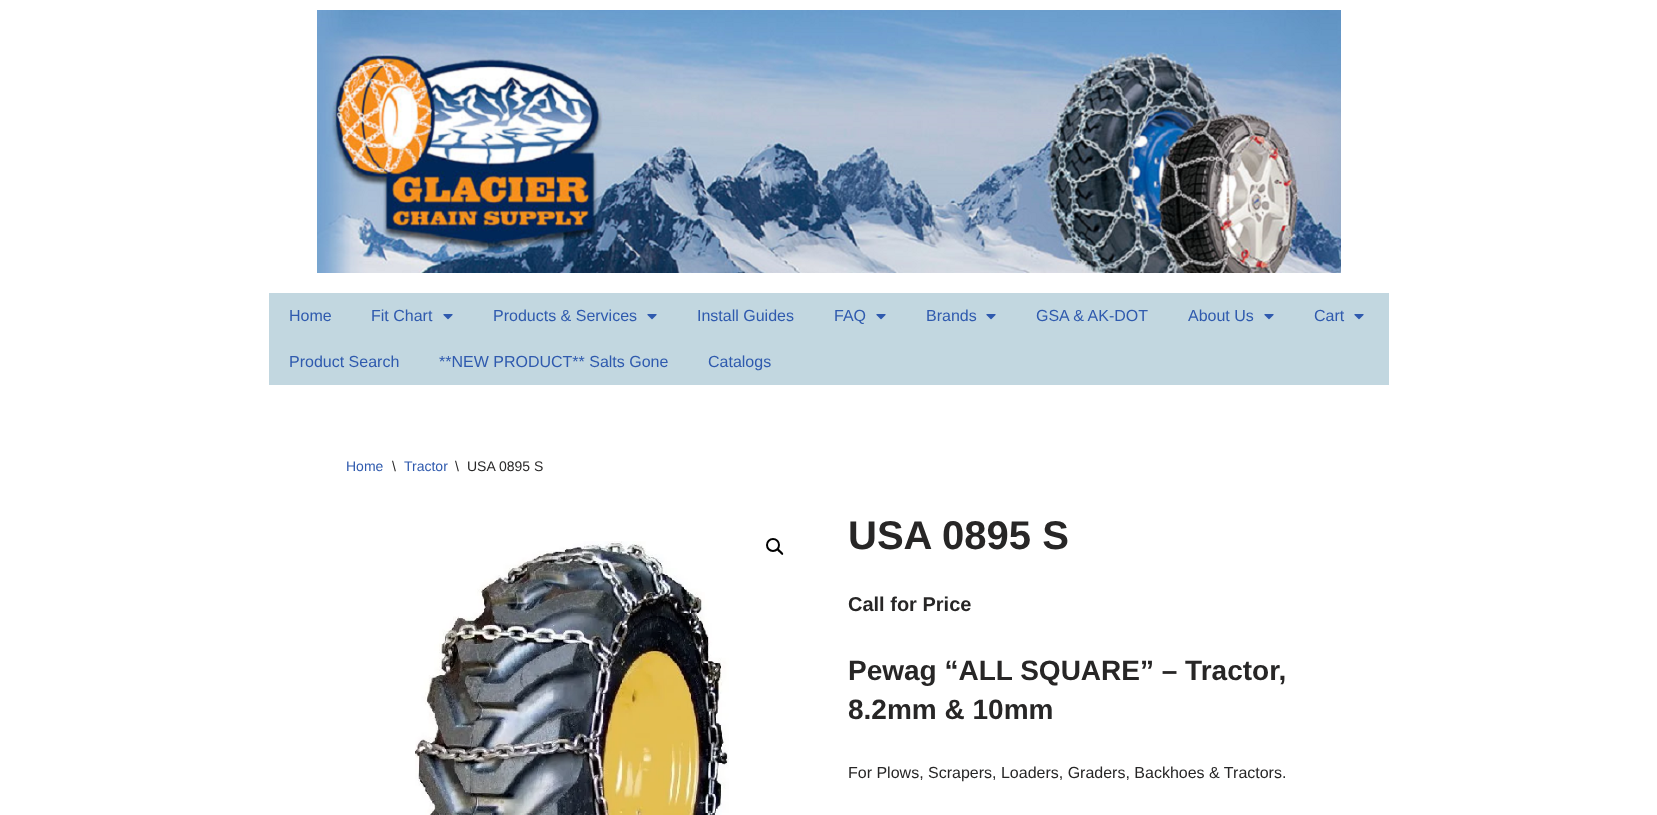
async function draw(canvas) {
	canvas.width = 1657;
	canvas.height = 815;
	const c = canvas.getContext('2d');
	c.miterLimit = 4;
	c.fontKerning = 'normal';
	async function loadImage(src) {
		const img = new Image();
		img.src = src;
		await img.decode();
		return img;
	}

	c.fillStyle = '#fff';
	c.fillRect(0, 0, 1657, 815);
	c.drawImage(await loadImage('img1.png'), 317, 10, 1024, 263);
	c.fillStyle = '#c2d7e0';
	c.fillRect(269, 293, 1120, 92);
	c.font = '16px Liberation Sans';
	c.fillStyle = '#2f5aae';
	c.fillText('Home', 289, 321);
	c.fillText('Fit Chart', 371, 321);
	c.drawImage(await loadImage('img2.png'), 443, 314, 10, 6);
	c.fillText('Products & Services', 493, 321);
	c.drawImage(await loadImage('img2.png'), 647, 314, 10, 6);
	c.fillText('Install Guides', 697, 321);
	c.fillText('FAQ', 834, 321);
	c.drawImage(await loadImage('img2.png'), 876, 314, 10, 6);
	c.fillText('Brands', 926, 321);
	c.drawImage(await loadImage('img2.png'), 986, 314, 10, 6);
	c.fillText('GSA & AK-DOT', 1036, 321);
	c.fillText('About Us', 1188, 321);
	c.drawImage(await loadImage('img2.png'), 1264, 314, 10, 6);
	c.fillText('Cart', 1314, 321);
	c.drawImage(await loadImage('img2.png'), 1354, 314, 10, 6);
	for (const [text, x, y] of [
		['Product Search', 289, 367],
		['**NEW PRODUCT** Salts Gone', 439, 367],
		['Catalogs', 708, 367],
	]) {
		c.fillText(text, x, y);
	}
	c.font = '14px Liberation Sans';
	c.fillText('Home', 346, 471);
	c.fillStyle = '#272626';
	c.fillText('\\', 392, 471);
	c.fillStyle = '#2f5aae';
	c.fillText('Tractor', 404, 471);
	c.fillStyle = '#272626';
	c.fillText('\\', 455, 471);
	c.fillText('USA 0895 S', 467, 471);
	c.drawImage(await loadImage('img3.png'), 415, 541, 314, 274);
	c.beginPath();
	c.arc(773, 545, 6, 0, 2 * Math.PI);
	c.strokeStyle = '#000';
	c.lineWidth = 2;
	c.stroke();
	c.fillStyle = '#000';
	c.beginPath();
	c.moveTo(777.5, 549);
	c.bezierCurveTo(778.5, 548, 780.5, 550.5, 781, 551);
	c.bezierCurveTo(781.5, 551.5, 784, 553.5, 783, 554.5);
	c.bezierCurveTo(782, 556, 780, 553, 779.5, 552.5);
	c.bezierCurveTo(779, 552, 776, 550, 777.5, 549);
	c.closePath();
	c.fill();
	c.font = 'bold 40px Liberation Sans';
	c.fillStyle = '#272626';
	c.fillText('USA 0895 S', 848, 549);
	c.font = 'bold 20px Liberation Sans';
	c.fillText('Call for Price', 848, 611);
	c.font = 'bold 28px Liberation Sans';
	c.fillText('Pewag “ALL SQUARE” – Tractor,', 848, 680);
	c.fillText('8.2mm & 10mm', 848, 719);
	c.font = '16px Liberation Sans';
	c.fillText('For Plows, Scrapers, Loaders, Graders, Backhoes & Tractors.', 848, 778);
}

draw(document.querySelector('canvas'));
